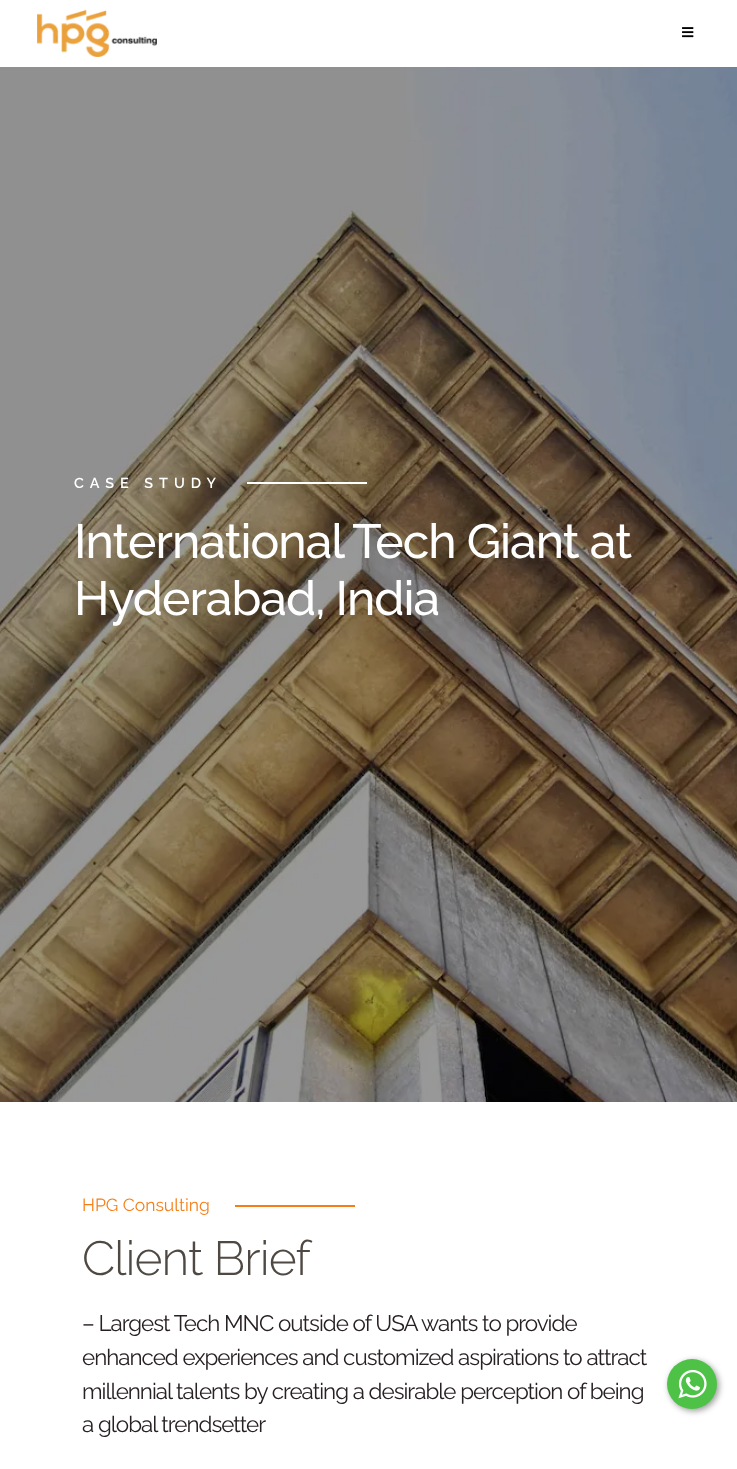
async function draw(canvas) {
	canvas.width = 737;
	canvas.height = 1469;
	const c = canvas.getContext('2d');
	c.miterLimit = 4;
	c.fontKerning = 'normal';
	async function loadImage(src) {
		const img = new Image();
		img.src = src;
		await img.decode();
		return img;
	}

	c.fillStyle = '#fff';
	c.fillRect(0, 0, 737, 1469);
	c.drawImage(await loadImage('img1.png'), 37, 10, 120, 47);
	c.drawImage(await loadImage('img2.png'), 682, 27, 12, 11);
	c.drawImage(await loadImage('img3.png'), 0, 67, 737, 1035);
	c.letterSpacing = '6px';
	c.font = '100 14.4px Raleway';
	c.fillText('CASE STUDY', 74, 488);
	c.fillRect(247, 482, 120, 2);
	c.letterSpacing = '-1px';
	c.font = '100 48px "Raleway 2"';
	c.fillText('International Tech Giant at', 74, 558);
	c.fillText('Hyderabad, India', 74, 615);
	c.letterSpacing = '0px';
	c.font = '100 17.5px "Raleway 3"';
	c.fillStyle = '#f77e16';
	c.fillText('HPG Consulting', 82, 1211);
	c.fillRect(235, 1205, 120, 2);
	c.letterSpacing = '-1px';
	c.font = '100 48px "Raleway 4"';
	c.fillStyle = '#4f4943';
	c.fillText('Client Brief', 82, 1275);
	c.font = '100 22.4px "Raleway 3"';
	c.fillStyle = '#282124';
	for (const [text, x, y] of [
		['– Largest Tech MNC outside of USA wants to provide', 82, 1331],
		['enhanced experiences and customized aspirations to attract', 82, 1365],
		['millennial talents by creating a desirable perception of being', 82, 1399],
		['a global trendsetter', 82, 1432],
	]) {
		c.fillText(text, x, y);
	}
	c.fillStyle = '#00000066';
	c.filter = 'blur(3px)';
	c.beginPath();
	c.roundRect(669, 1361, 50, 50, 25);
	c.fill();
	c.filter = 'none';
	c.fillStyle = '#4dc247';
	c.beginPath();
	c.arc(692, 1384, 25, 0, 2 * Math.PI);
	c.fill();
	c.drawImage(await loadImage('img4.png'), 678, 1369, 29, 30);
}

draw(document.querySelector('canvas'));
